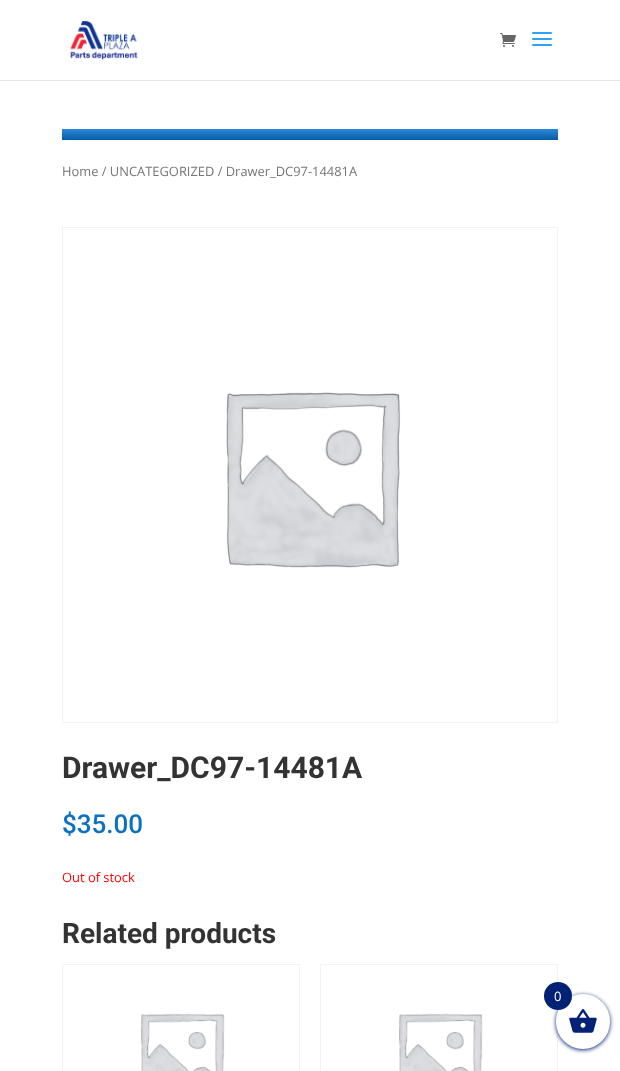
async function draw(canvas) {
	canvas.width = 620;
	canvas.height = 1071;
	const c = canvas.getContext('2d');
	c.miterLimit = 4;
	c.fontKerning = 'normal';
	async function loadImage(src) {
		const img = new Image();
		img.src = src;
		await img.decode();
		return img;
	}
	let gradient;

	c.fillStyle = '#fff';
	c.fillRect(0, 0, 620, 1071);
	c.fillStyle = '#e6e6e6';
	c.fillRect(0, 80, 620, 1);
	c.drawImage(await loadImage('img1.png'), 70, 21, 68, 39);
	c.drawImage(await loadImage('img2.png'), 500, 33, 16, 14);
	c.drawImage(await loadImage('img3.png'), 532, 32, 20, 14);
	gradient = c.createLinearGradient(310, 129, 310, 140);
	gradient.addColorStop(0, '#2b87da');
	gradient.addColorStop(1, '#085da3');
	c.fillStyle = gradient;
	c.fillRect(62, 129, 496, 11);
	c.font = '12.9px Open Sans';
	c.fillStyle = '#767676';
	c.fillText('Home / UNCATEGORIZED / Drawer_DC97-14481A', 62, 176);
	c.strokeStyle = '#f2f2f2';
	c.strokeRect(62.5, 227.5, 495, 495);
	c.drawImage(await loadImage('img4.png'), 226, 392, 175, 176);
	c.font = 'bold 30px Roboto';
	c.fillStyle = '#333';
	c.fillText('Drawer_DC97-14481A', 62, 778);
	c.font = '500 26px Roboto';
	c.fillStyle = '#0c71c3';
	c.fillText('$35.00', 62, 833);
	c.font = '12.9px Open Sans';
	c.fillStyle = '#f00';
	c.fillText('Out of stock', 62, 882);
	c.font = 'bold 28px Roboto';
	c.fillStyle = '#333';
	c.fillText('Related products', 62, 943);
	c.strokeRect(62.5, 964.5, 237, 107);
	c.drawImage(await loadImage('img5.png'), 141, 1013, 84, 58);
	c.strokeRect(320.5, 964.5, 237, 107);
	c.drawImage(await loadImage('img5.png'), 399, 1013, 84, 58);
	c.fillStyle = '#032175';
	c.filter = 'blur(2px)';
	c.beginPath();
	c.roundRect(556, 995, 54, 55, 27);
	c.fill();
	c.filter = 'none';
	c.fillStyle = '#fff';
	c.beginPath();
	c.roundRect(556, 994, 54, 55, 27);
	c.fill();
	c.fillStyle = '#032175';
	c.beginPath();
	c.arc(558, 996, 14, 0, 2 * Math.PI);
	c.fill();
	c.font = '13px Open Sans';
	c.fillStyle = '#fff';
	c.fillText('0', 554, 1001);
	c.drawImage(await loadImage('img6.png'), 569, 1009, 28, 24);
}

draw(document.querySelector('canvas'));
